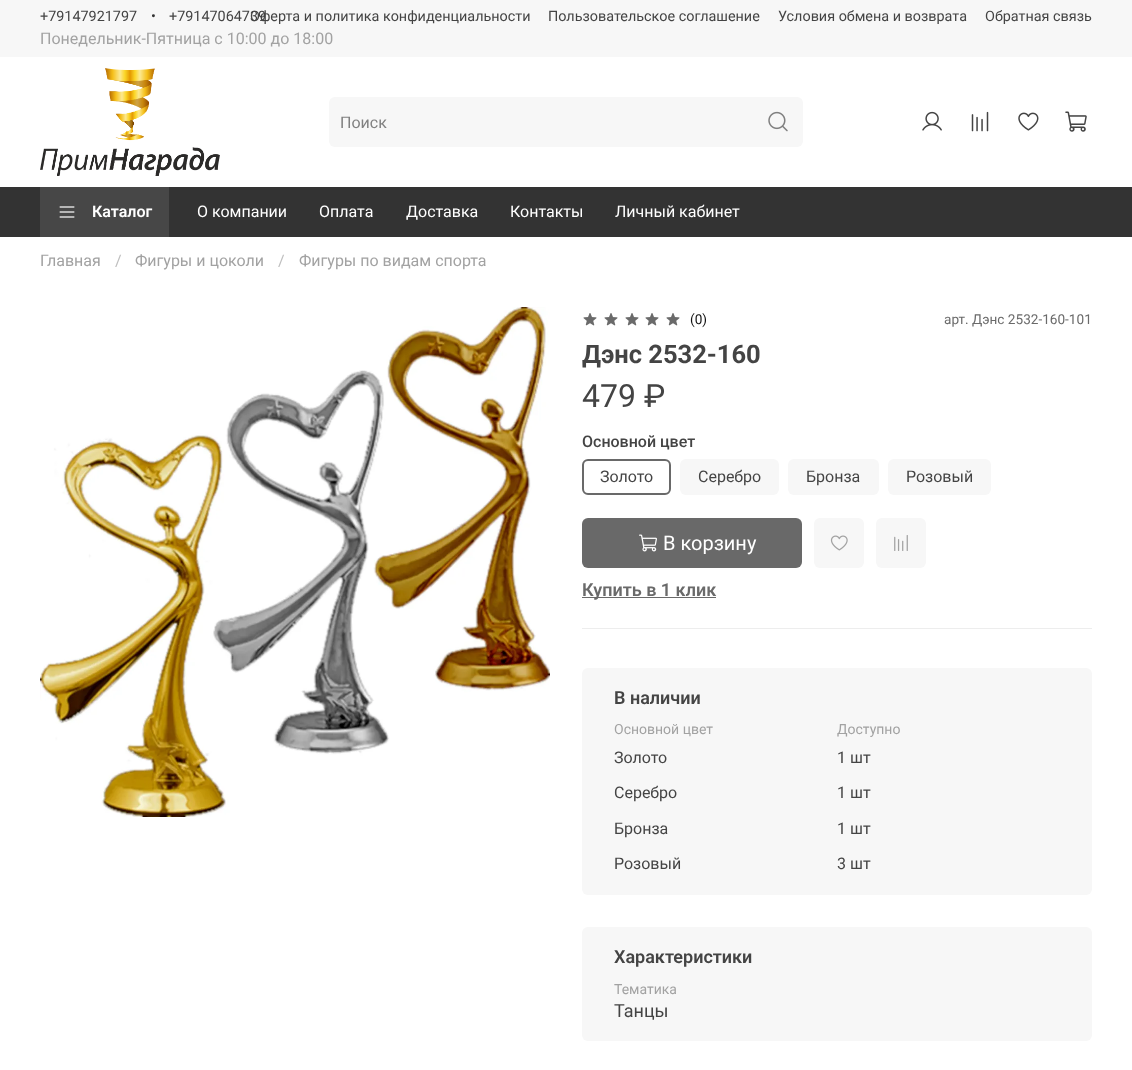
async function draw(canvas) {
	canvas.width = 1132;
	canvas.height = 1070;
	const c = canvas.getContext('2d');
	c.miterLimit = 4;
	c.fontKerning = 'normal';
	async function loadImage(src) {
		const img = new Image();
		img.src = src;
		await img.decode();
		return img;
	}

	c.fillStyle = '#fff';
	c.fillRect(0, 0, 1132, 1070);
	c.fillStyle = '#f7f7f7';
	c.fillRect(0, 0, 1132, 57);
	c.font = '14.4px Roboto';
	c.fillStyle = '#444';
	c.fillText('+79147921797', 40, 21);
	c.fillStyle = '#333';
	c.fillText('•', 151, 21);
	c.fillStyle = '#444';
	for (const [text, x, y] of [
		['Оферта и политика конфиденциальности', 250, 21],
		['+79147064739', 169, 21],
		['Пользовательское соглашение', 548, 21],
		['Условия обмена и возврата', 778, 21],
		['Обратная связь', 985, 21],
	]) {
		c.fillText(text, x, y);
	}
	c.font = '16px Roboto';
	c.fillStyle = '#a2a2a2';
	c.fillText('Понедельник-Пятница с 10:00 до 18:00', 40, 44);
	c.drawImage(await loadImage('img1.png'), 40, 68, 180, 108);
	c.fillStyle = '#f7f7f7';
	c.beginPath();
	c.roundRect(329, 97, 424, 50, [6, 0, 0, 6]);
	c.fill();
	c.fillStyle = '#808080';
	c.fillText('Поиск', 340, 128);
	c.fillStyle = '#f7f7f7';
	c.beginPath();
	c.roundRect(753, 97, 50, 50, [0, 6, 6, 0]);
	c.fill();
	c.drawImage(await loadImage('img2.png'), 768, 111, 20, 21);
	c.drawImage(await loadImage('img3.png'), 922, 111, 20, 20);
	c.drawImage(await loadImage('img4.png'), 971, 111, 18, 21);
	c.drawImage(await loadImage('img5.png'), 1018, 112, 21, 19);
	c.drawImage(await loadImage('img6.png'), 1065, 111, 22, 21);
	c.fillStyle = '#333';
	c.fillRect(0, 187, 1132, 50);
	c.fillStyle = '#474747';
	c.fillRect(40, 187, 129, 50);
	c.drawImage(await loadImage('img7.png'), 59, 206, 16, 12);
	c.font = '600 16px Roboto';
	c.fillStyle = '#fff';
	c.fillText('Каталог', 92, 217);
	c.font = '16px Roboto';
	for (const [text, x, y] of [
		['О компании', 197, 217],
		['Оплата', 319, 217],
		['Доставка', 406, 217],
		['Контакты', 510, 217],
		['Личный кабинет', 615, 217],
	]) {
		c.fillText(text, x, y);
	}
	c.fillStyle = '#a2a2a2';
	c.fillText('Главная', 40, 266);
	c.fillStyle = '#bebebe';
	c.fillText('/', 115, 266);
	c.fillStyle = '#a2a2a2';
	c.fillText('Фигуры и цоколи', 135, 266);
	c.fillStyle = '#bebebe';
	c.fillText('/', 278, 266);
	c.fillStyle = '#a2a2a2';
	c.fillText('Фигуры по видам спорта', 299, 266);
	c.drawImage(await loadImage('img8.png'), 40, 307, 510, 510);
	c.drawImage(await loadImage('img9.png'), 583, 313, 14, 13);
	c.drawImage(await loadImage('img9.png'), 604, 313, 14, 13);
	c.drawImage(await loadImage('img9.png'), 625, 313, 14, 13);
	c.drawImage(await loadImage('img9.png'), 645, 313, 14, 13);
	c.drawImage(await loadImage('img9.png'), 666, 313, 14, 13);
	c.font = '13.6px Roboto';
	c.fillStyle = '#111';
	c.fillText('(0)', 690, 324);
	c.fillStyle = '#6a6a6a';
	c.fillText('арт. Дэнс 2532-160-101', 944, 324);
	c.font = 'bold 25.5px Roboto';
	c.fillStyle = '#444';
	c.fillText('Дэнс 2532-160', 582, 363);
	c.font = '32px Roboto';
	c.fillText('479 ₽', 582, 407);
	c.font = '500 16px Roboto';
	c.fillText('Основной цвет', 582, 447);
	c.beginPath();
	c.roundRect(583, 460, 87, 34, 5);
	c.strokeStyle = '#696969';
	c.lineWidth = 2;
	c.stroke();
	c.font = '16px Roboto';
	c.fillText('Золото', 600, 482);
	c.fillStyle = '#f7f7f7';
	c.beginPath();
	c.roundRect(680, 459, 99, 36, 6);
	c.fill();
	c.fillStyle = '#444';
	c.fillText('Серебро', 698, 482);
	c.fillStyle = '#f7f7f7';
	c.beginPath();
	c.roundRect(788, 459, 91, 36, 6);
	c.fill();
	c.fillStyle = '#444';
	c.fillText('Бронза', 806, 482);
	c.fillStyle = '#f7f7f7';
	c.beginPath();
	c.roundRect(888, 459, 103, 36, 6);
	c.fill();
	c.fillStyle = '#444';
	c.fillText('Розовый', 906, 482);
	c.fillStyle = '#696969';
	c.beginPath();
	c.roundRect(582, 518, 220, 50, 6);
	c.fill();
	c.drawImage(await loadImage('img10.png'), 639, 534, 18, 18);
	c.font = '20px Roboto';
	c.fillStyle = '#fff';
	c.fillText('В корзину', 663, 550);
	c.fillStyle = '#f7f7f7';
	c.beginPath();
	c.roundRect(814, 518, 50, 50, 6);
	c.fill();
	c.drawImage(await loadImage('img11.png'), 830, 535, 18, 16);
	c.beginPath();
	c.roundRect(876, 518, 50, 50, 6);
	c.fill();
	c.drawImage(await loadImage('img12.png'), 894, 535, 14, 16);
	c.fillStyle = '#696969';
	c.fillRect(582, 597, 134, 1);
	c.font = '600 18px Roboto';
	c.fillStyle = '#6a6a6a';
	c.fillText('Купить в 1 клик', 582, 596);
	c.fillStyle = '#ededed';
	c.fillRect(582, 628, 510, 1);
	c.fillStyle = '#f7f7f7';
	c.beginPath();
	c.roundRect(582, 668, 510, 227, 6);
	c.fill();
	c.fillStyle = '#444';
	c.fillText('В наличии', 614, 704);
	c.font = '14px Roboto';
	c.fillStyle = '#a2a2a2';
	c.fillText('Основной цвет', 614, 734);
	c.fillText('Доступно', 837, 734);
	c.font = '16px Roboto';
	c.fillStyle = '#444';
	for (const [text, x, y] of [
		['Золото', 614, 763],
		['1 шт', 837, 763],
		['Серебро', 614, 798],
		['1 шт', 837, 798],
		['Бронза', 614, 834],
		['1 шт', 837, 834],
		['Розовый', 614, 869],
		['3 шт', 837, 869],
	]) {
		c.fillText(text, x, y);
	}
	c.fillStyle = '#f7f7f7';
	c.beginPath();
	c.roundRect(582, 927, 510, 114, 6);
	c.fill();
	c.font = '600 18px Roboto';
	c.fillStyle = '#444';
	c.fillText('Характеристики', 614, 963);
	c.font = '14px Roboto';
	c.fillStyle = '#a2a2a2';
	c.fillText('Тематика', 614, 994);
	c.font = '18px Roboto';
	c.fillStyle = '#444';
	c.fillText('Танцы', 614, 1017);
}

draw(document.querySelector('canvas'));
